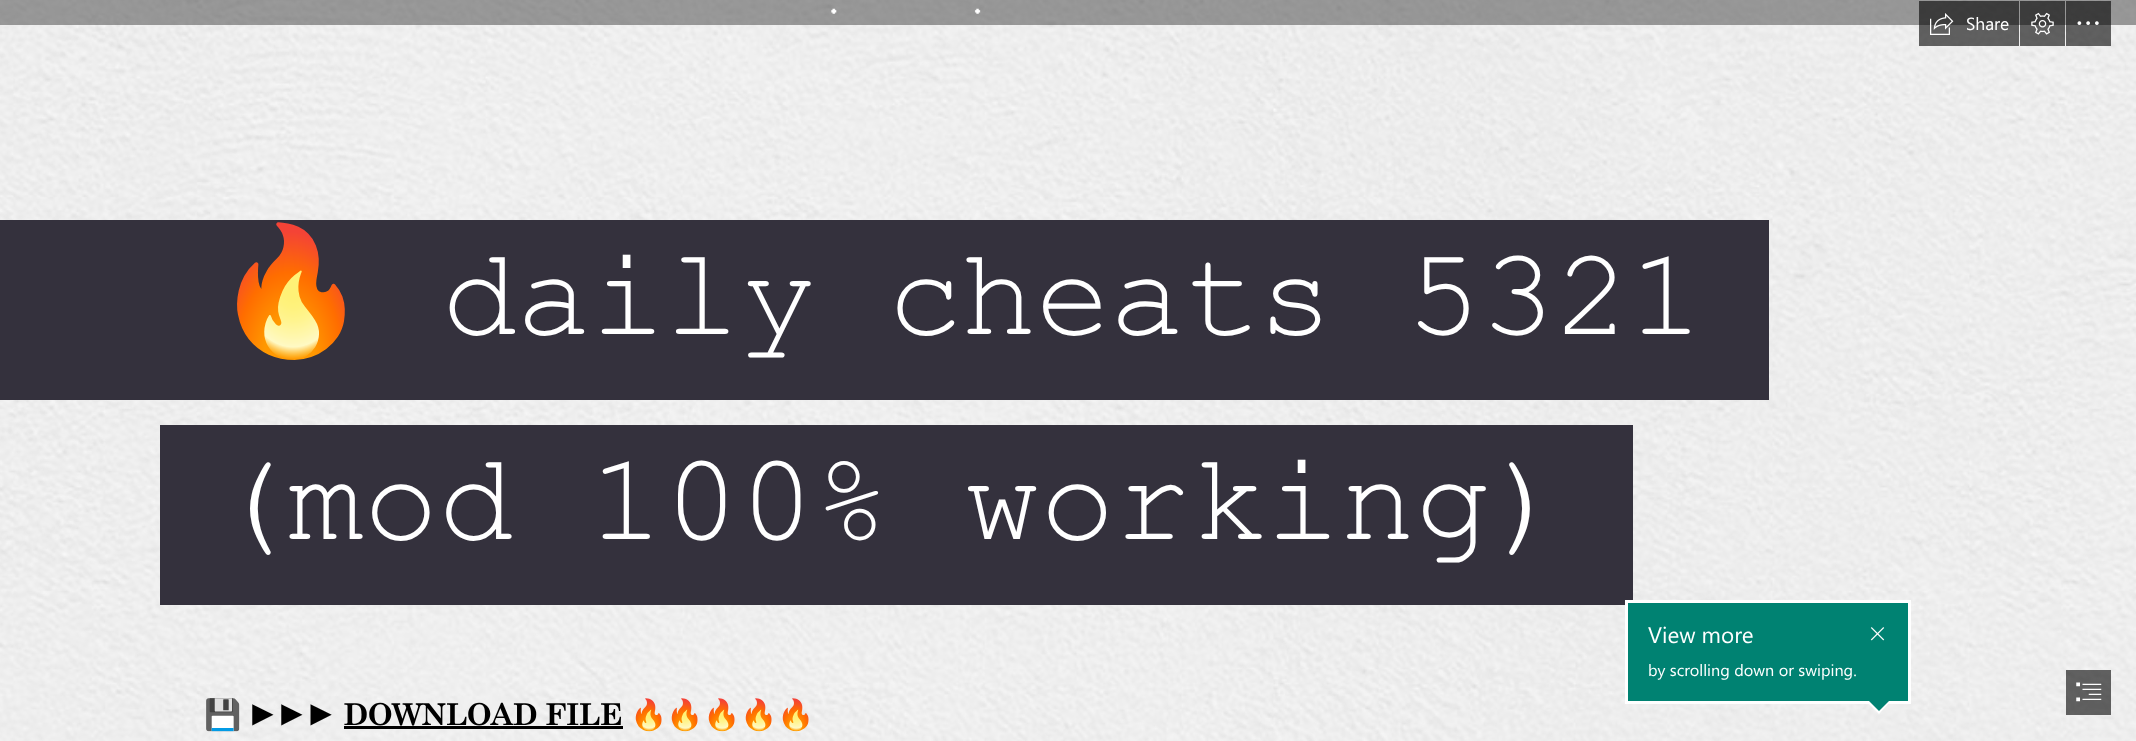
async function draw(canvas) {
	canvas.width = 2136;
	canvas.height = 741;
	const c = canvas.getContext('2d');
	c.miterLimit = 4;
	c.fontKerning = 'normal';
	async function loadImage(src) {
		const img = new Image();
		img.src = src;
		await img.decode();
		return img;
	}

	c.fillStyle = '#eaeaea';
	c.fillRect(0, 0, 2136, 741);
	c.drawImage(await loadImage('img5.png'), 0, 0, 2136, 741);
	c.fillStyle = '#40404080';
	c.fillRect(0, 0, 2136, 25);
	c.fillStyle = '#00000099';
	c.fillRect(1919, 1, 100, 45);
	c.drawImage(await loadImage('img1.png'), 1930, 13, 24, 22);
	c.font = '17.5px Segoe UI';
	c.fillStyle = '#fff';
	c.fillText('Share', 1966, 30);
	c.fillStyle = '#00000099';
	c.fillRect(2020, 1, 45, 45);
	c.drawImage(await loadImage('img2.png'), 2031, 12, 23, 23);
	c.fillRect(2066, 1, 45, 45);
	c.drawImage(await loadImage('img3.png'), 2077, 21, 22, 4);
	c.drawImage(await loadImage('img4.png'), 831, 8, 150, 6);
	c.fillStyle = '#34313d';
	c.fillRect(0, 220, 1769, 180);
	c.letterSpacing = '-1px';
	c.font = '125.25px Noto Color Emoji';
	c.fillStyle = '#fff';
	c.fillText('🔥', 213, 334);
	c.font = '125.25px Courier New';
	c.fillText('daily cheats 5321', 442, 334);
	c.fillStyle = '#34313d';
	c.fillRect(160, 425, 1473, 180);
	c.letterSpacing = '0px';
	c.fillStyle = '#fff';
	c.fillText('(mod 100% working)', 213, 539);
	c.letterSpacing = '-0.6px';
	c.font = 'bold 30px Noto Color Emoji';
	c.fillStyle = '#000';
	c.fillText('💾', 204, 725);
	c.font = 'bold 30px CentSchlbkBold';
	c.fillText('►►► DOWNLOAD FILE', 248, 725);
	c.font = 'bold 30px Noto Color Emoji';
	c.fillText('🔥🔥🔥🔥🔥', 630, 725);
	c.fillRect(344, 726, 279, 3);
	c.fillStyle = '#008272';
	c.beginPath();
	c.rect(1626.5, 601.5, 283, 101);
	c.fill();
	c.strokeStyle = '#fff';
	c.lineWidth = 3;
	c.stroke();
	c.letterSpacing = '0px';
	c.font = '22.5px Segoe UI';
	c.fillStyle = '#fff';
	c.fillText('View more', 1648, 643);
	c.font = '16.25px Segoe UI';
	c.fillText('by scrolling down or swiping.', 1648, 676);
	c.drawImage(await loadImage('img6.png'), 1870, 627, 15, 14);
	c.beginPath();
	c.moveTo(1866, 701);
	c.lineTo(1891, 701);
	c.lineTo(1879, 714);
	c.closePath();
	c.fill();
	c.fillStyle = '#008272';
	c.beginPath();
	c.moveTo(1869, 701);
	c.lineTo(1889, 701);
	c.lineTo(1879, 711);
	c.closePath();
	c.fill();
	c.fillStyle = '#00000099';
	c.fillRect(2066, 670, 45, 45);
	c.drawImage(await loadImage('img7.png'), 2076, 682, 26, 20);
}

draw(document.querySelector('canvas'));
